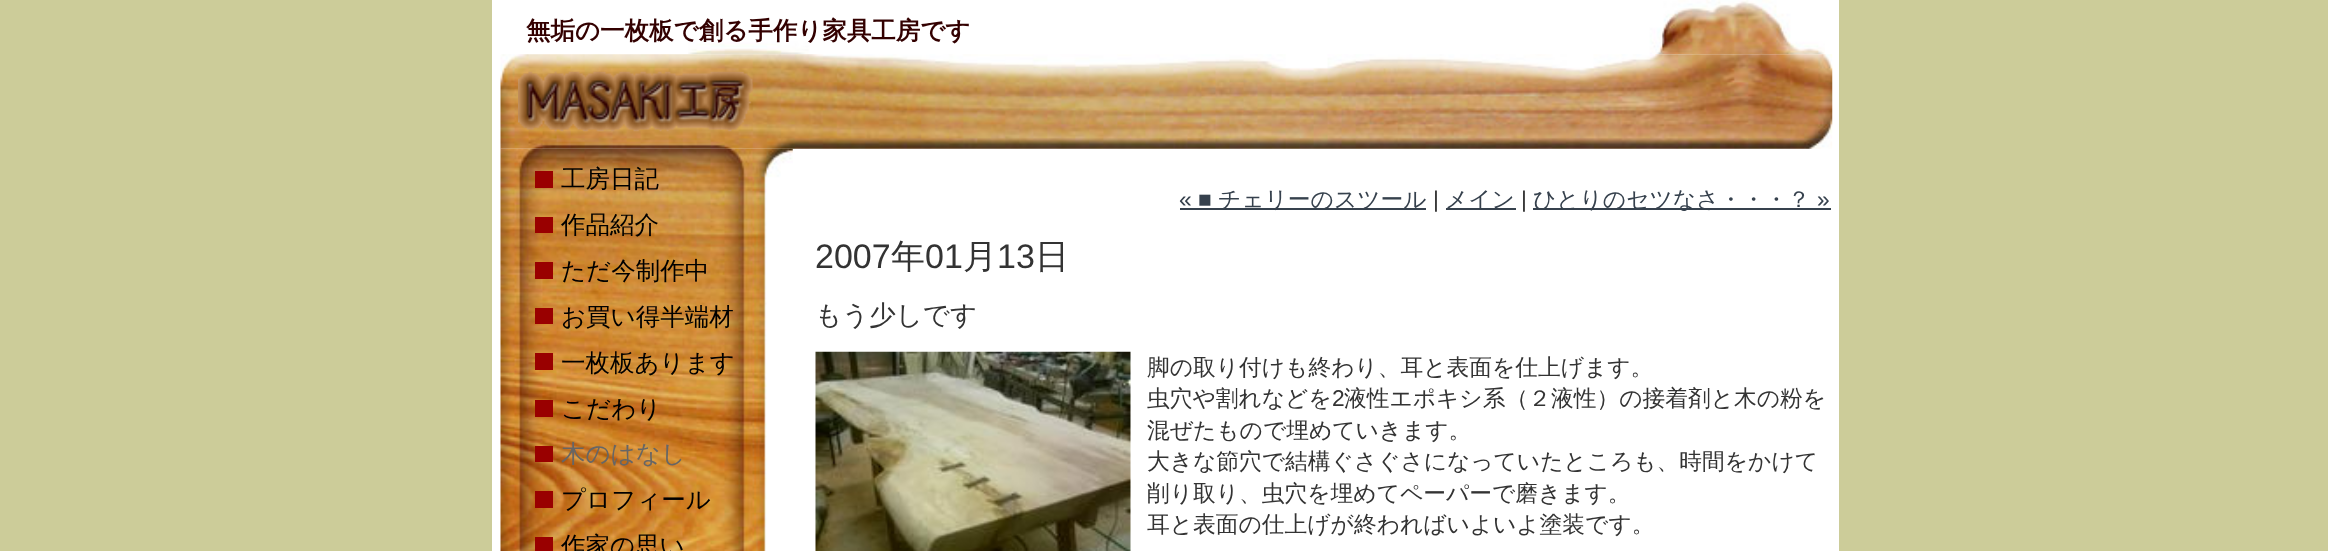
async function draw(canvas) {
	canvas.width = 2328;
	canvas.height = 551;
	const c = canvas.getContext('2d');
	c.miterLimit = 4;
	c.fontKerning = 'normal';
	async function loadImage(src) {
		const img = new Image();
		img.src = src;
		await img.decode();
		return img;
	}

	c.fillStyle = '#cc9';
	c.fillRect(0, 0, 2328, 551);
	c.fillStyle = '#fff';
	c.fillRect(492, 0, 1347, 551);
	c.drawImage(await loadImage('img1.png'), 688, 0, 1137, 55);
	c.font = 'bold 24.5px WenQuanYi Zen Hei';
	c.fillStyle = '#300';
	c.fillText('無垢の一枚板で創る手作り家具工房です', 526, 39);
	c.drawImage(await loadImage('img2.png'), 500, 54, 1333, 95);
	c.drawImage(await loadImage('img3.png'), 518, 71, 235, 61);
	c.drawImage(await loadImage('img4.png'), 500, 148, 293, 403);
	c.fillStyle = '#900';
	c.fillRect(535, 171, 18, 17);
	c.font = '500 24.5px WenQuanYi Zen Hei';
	c.fillStyle = '#000';
	c.fillText('工房日記', 561, 187);
	c.fillStyle = '#900';
	c.fillRect(535, 217, 18, 16);
	c.fillStyle = '#000';
	c.fillText('作品紹介', 561, 233);
	c.fillStyle = '#900';
	c.fillRect(535, 262, 18, 17);
	c.fillStyle = '#000';
	c.fillText('ただ今制作中', 561, 279);
	c.fillStyle = '#900';
	c.fillRect(535, 308, 18, 16);
	c.fillStyle = '#000';
	c.fillText('お買い得半端材', 561, 325);
	c.fillStyle = '#900';
	c.fillRect(535, 353, 18, 17);
	c.fillStyle = '#000';
	c.fillText('一枚板あります', 561, 371);
	c.fillStyle = '#900';
	c.fillRect(535, 400, 18, 17);
	c.fillStyle = '#000';
	c.fillText('こだわり', 561, 417);
	c.fillStyle = '#900';
	c.fillRect(535, 446, 18, 16);
	c.fillStyle = '#666';
	c.fillText('木のはなし', 561, 462);
	c.fillStyle = '#900';
	c.fillRect(535, 491, 18, 17);
	c.fillStyle = '#000';
	c.fillText('プロフィール', 561, 508);
	c.fillStyle = '#900';
	c.fillRect(535, 537, 18, 14);
	c.fillStyle = '#000';
	c.fillText('作家の思い', 561, 554);
	c.font = '22.75px Liberation Sans';
	c.fillStyle = '#36414d';
	c.fillText('« ■', 1179, 207);
	c.fillRect(1180, 208, 246, 2);
	c.font = '500 22.75px WenQuanYi Zen Hei';
	c.fillText('チェリーのスツール', 1218, 207);
	c.font = '22.75px Liberation Sans';
	c.fillStyle = '#333';
	c.fillText('|', 1433, 207);
	c.fillStyle = '#36414d';
	c.fillRect(1446, 208, 70, 2);
	c.font = '500 22.75px WenQuanYi Zen Hei';
	c.fillText('メイン', 1445, 207);
	c.font = '22.75px Liberation Sans';
	c.fillStyle = '#333';
	c.fillText('|', 1521, 207);
	c.fillStyle = '#36414d';
	c.fillRect(1533, 208, 298, 2);
	c.font = '500 22.75px WenQuanYi Zen Hei';
	c.fillText('ひとりのセツなさ・・・？', 1533, 207);
	c.font = '22.75px Liberation Sans';
	c.fillText('»', 1817, 207);
	c.font = '34px Liberation Sans';
	c.fillStyle = '#333';
	c.fillText('2007', 815, 268);
	c.font = '500 34px WenQuanYi Zen Hei';
	c.fillText('年', 891, 268);
	c.font = '34px Liberation Sans';
	c.fillText('01', 925, 268);
	c.font = '500 34px WenQuanYi Zen Hei';
	c.fillText('月', 963, 268);
	c.font = '34px Liberation Sans';
	c.fillText('13', 997, 268);
	c.font = '500 34px WenQuanYi Zen Hei';
	c.fillText('日', 1035, 268);
	c.font = '500 26.5px WenQuanYi Zen Hei';
	c.fillText('もう少しです', 815, 324);
	c.drawImage(await loadImage('img5.png'), 815, 351, 316, 200);
	c.font = '500 22.75px WenQuanYi Zen Hei';
	c.fillText('脚の取り付けも終わり、耳と表面を仕上げます。', 1147, 375);
	c.fillText('虫穴や割れなどを', 1147, 406);
	c.font = '22.75px Liberation Sans';
	c.fillText('2', 1332, 406);
	c.font = '500 22.75px WenQuanYi Zen Hei';
	for (const [text, x, y] of [
		['液性エポキシ系（２液性）の接着剤と木の粉を', 1344, 406],
		['混ぜたもので埋めていきます。', 1147, 438],
		['大きな節穴で結構ぐさぐさになっていたところも、時間をかけて', 1147, 469],
		['削り取り、虫穴を埋めてペーパーで磨きます。', 1147, 501],
		['耳と表面の仕上げが終わればいよいよ塗装です。', 1147, 532],
	]) {
		c.fillText(text, x, y);
	}
}

draw(document.querySelector('canvas'));
